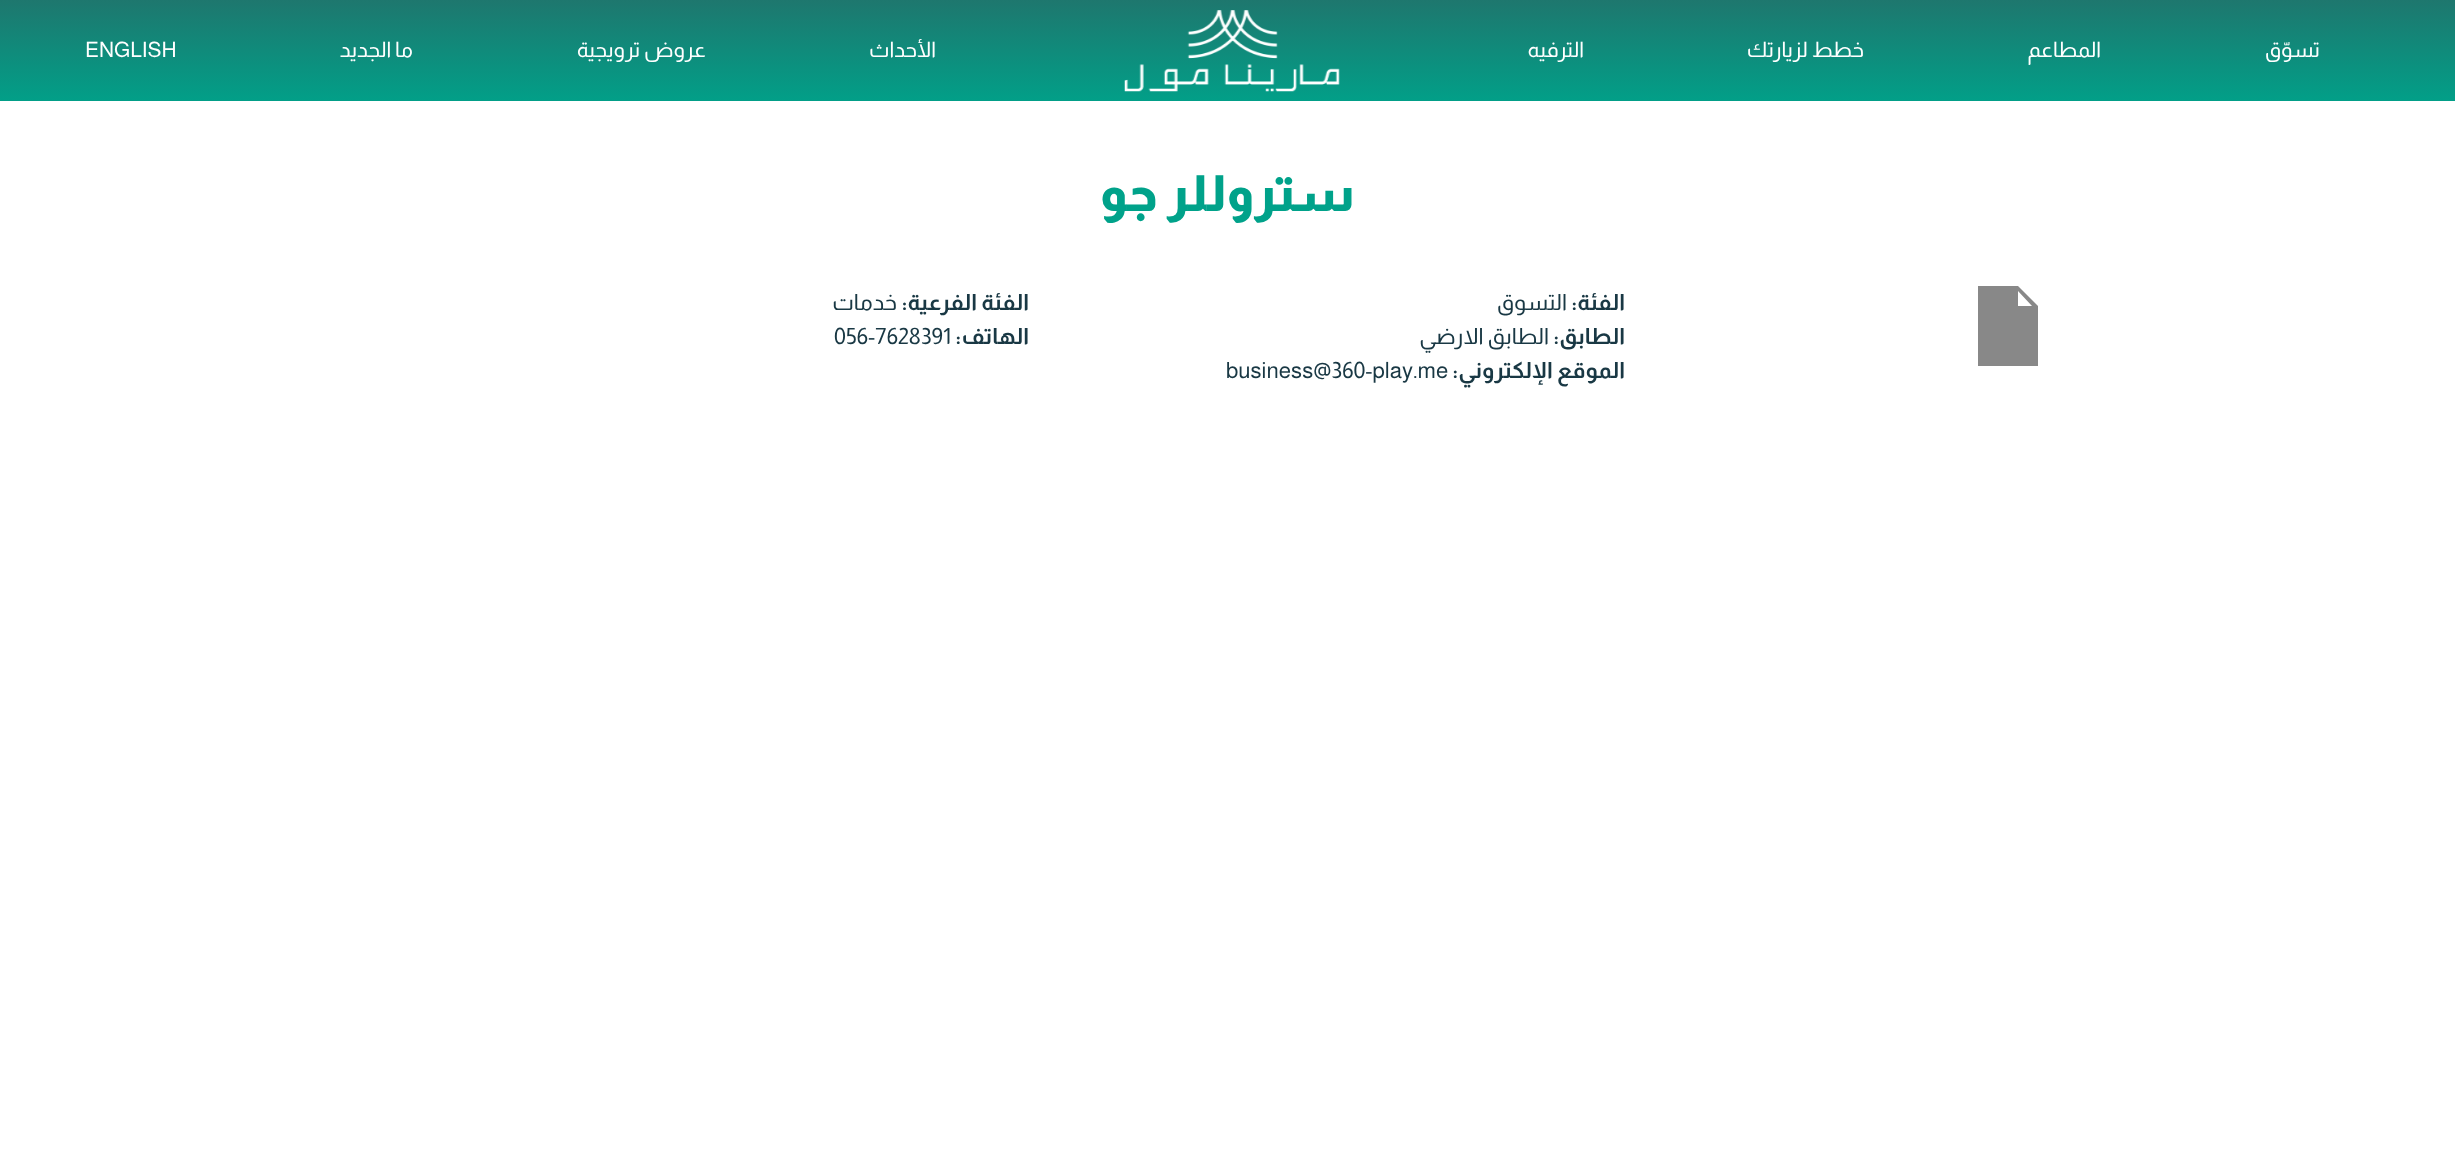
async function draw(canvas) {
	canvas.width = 2455;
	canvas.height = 1156;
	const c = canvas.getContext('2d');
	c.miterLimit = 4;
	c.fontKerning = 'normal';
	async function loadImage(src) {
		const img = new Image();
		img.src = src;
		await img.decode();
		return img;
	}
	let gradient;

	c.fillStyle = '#fff';
	c.fillRect(0, 0, 2455, 1156);
	gradient = c.createLinearGradient(1228, 0, 1228, 101);
	gradient.addColorStop(0, '#1e776e');
	gradient.addColorStop(1, '#029f88');
	c.fillStyle = gradient;
	c.fillRect(0, 0, 2455, 101);
	c.direction = 'rtl';
	c.font = '21.25px Almarai';
	c.fillStyle = '#fff';
	for (const [text, x, y] of [
		['تسوّق', 2320, 57],
		['المطاعم', 2101, 57],
		['خطط لزيارتك', 1864, 57],
		['الترفيه', 1584, 57],
	]) {
		c.fillText(text, x, y);
	}
	c.drawImage(await loadImage('img1.png'), 1124, 10, 216, 82);
	for (const [text, x, y] of [
		['الأحداث', 936, 57],
		['عروض ترويجية', 706, 57],
		['ما الجديد', 413, 57],
	]) {
		c.fillText(text, x, y);
	}
	c.direction = 'ltr';
	c.fillText('ENGLISH', 85, 57);
	c.direction = 'rtl';
	c.font = '800 50px Almarai';
	c.fillStyle = '#00a28a';
	c.fillText('ستروللر جو', 1355, 211);
	c.fillStyle = '#888';
	c.beginPath();
	c.moveTo(2018, 286);
	c.lineTo(1978, 286);
	c.lineTo(1978, 366);
	c.lineTo(2038, 366);
	c.lineTo(2038, 306);
	c.closePath();
	c.moveTo(2018, 306);
	c.lineTo(2018, 291);
	c.lineTo(2032, 306);
	c.closePath();
	c.fill();
	c.font = 'bold 22.5px Almarai';
	c.fillStyle = '#193844';
	c.fillText('الفئة:', 1625, 310);
	c.font = '22.5px Almarai';
	c.fillText('التسوق', 1567, 310);
	c.font = 'bold 22.5px Almarai';
	c.fillText('الفئة الفرعية:', 1029, 310);
	c.font = '22.5px Almarai';
	c.fillText('خدمات', 897, 310);
	c.font = 'bold 22.5px Almarai';
	c.fillText('الطابق:', 1625, 344);
	c.font = '22.5px Almarai';
	c.fillText('الطابق الارضي', 1549, 344);
	c.font = 'bold 22.5px Almarai';
	c.fillText('الهاتف:', 1029, 344);
	c.direction = 'ltr';
	c.font = '22.5px Almarai';
	c.fillText('056-7628391', 834, 344);
	c.direction = 'rtl';
	c.font = 'bold 22.5px Almarai';
	c.fillText('الموقع الإلكتروني:', 1625, 378);
	c.direction = 'ltr';
	c.font = '22.5px Almarai';
	c.fillText('business@360-play.me', 1226, 378);
}

draw(document.querySelector('canvas'));
